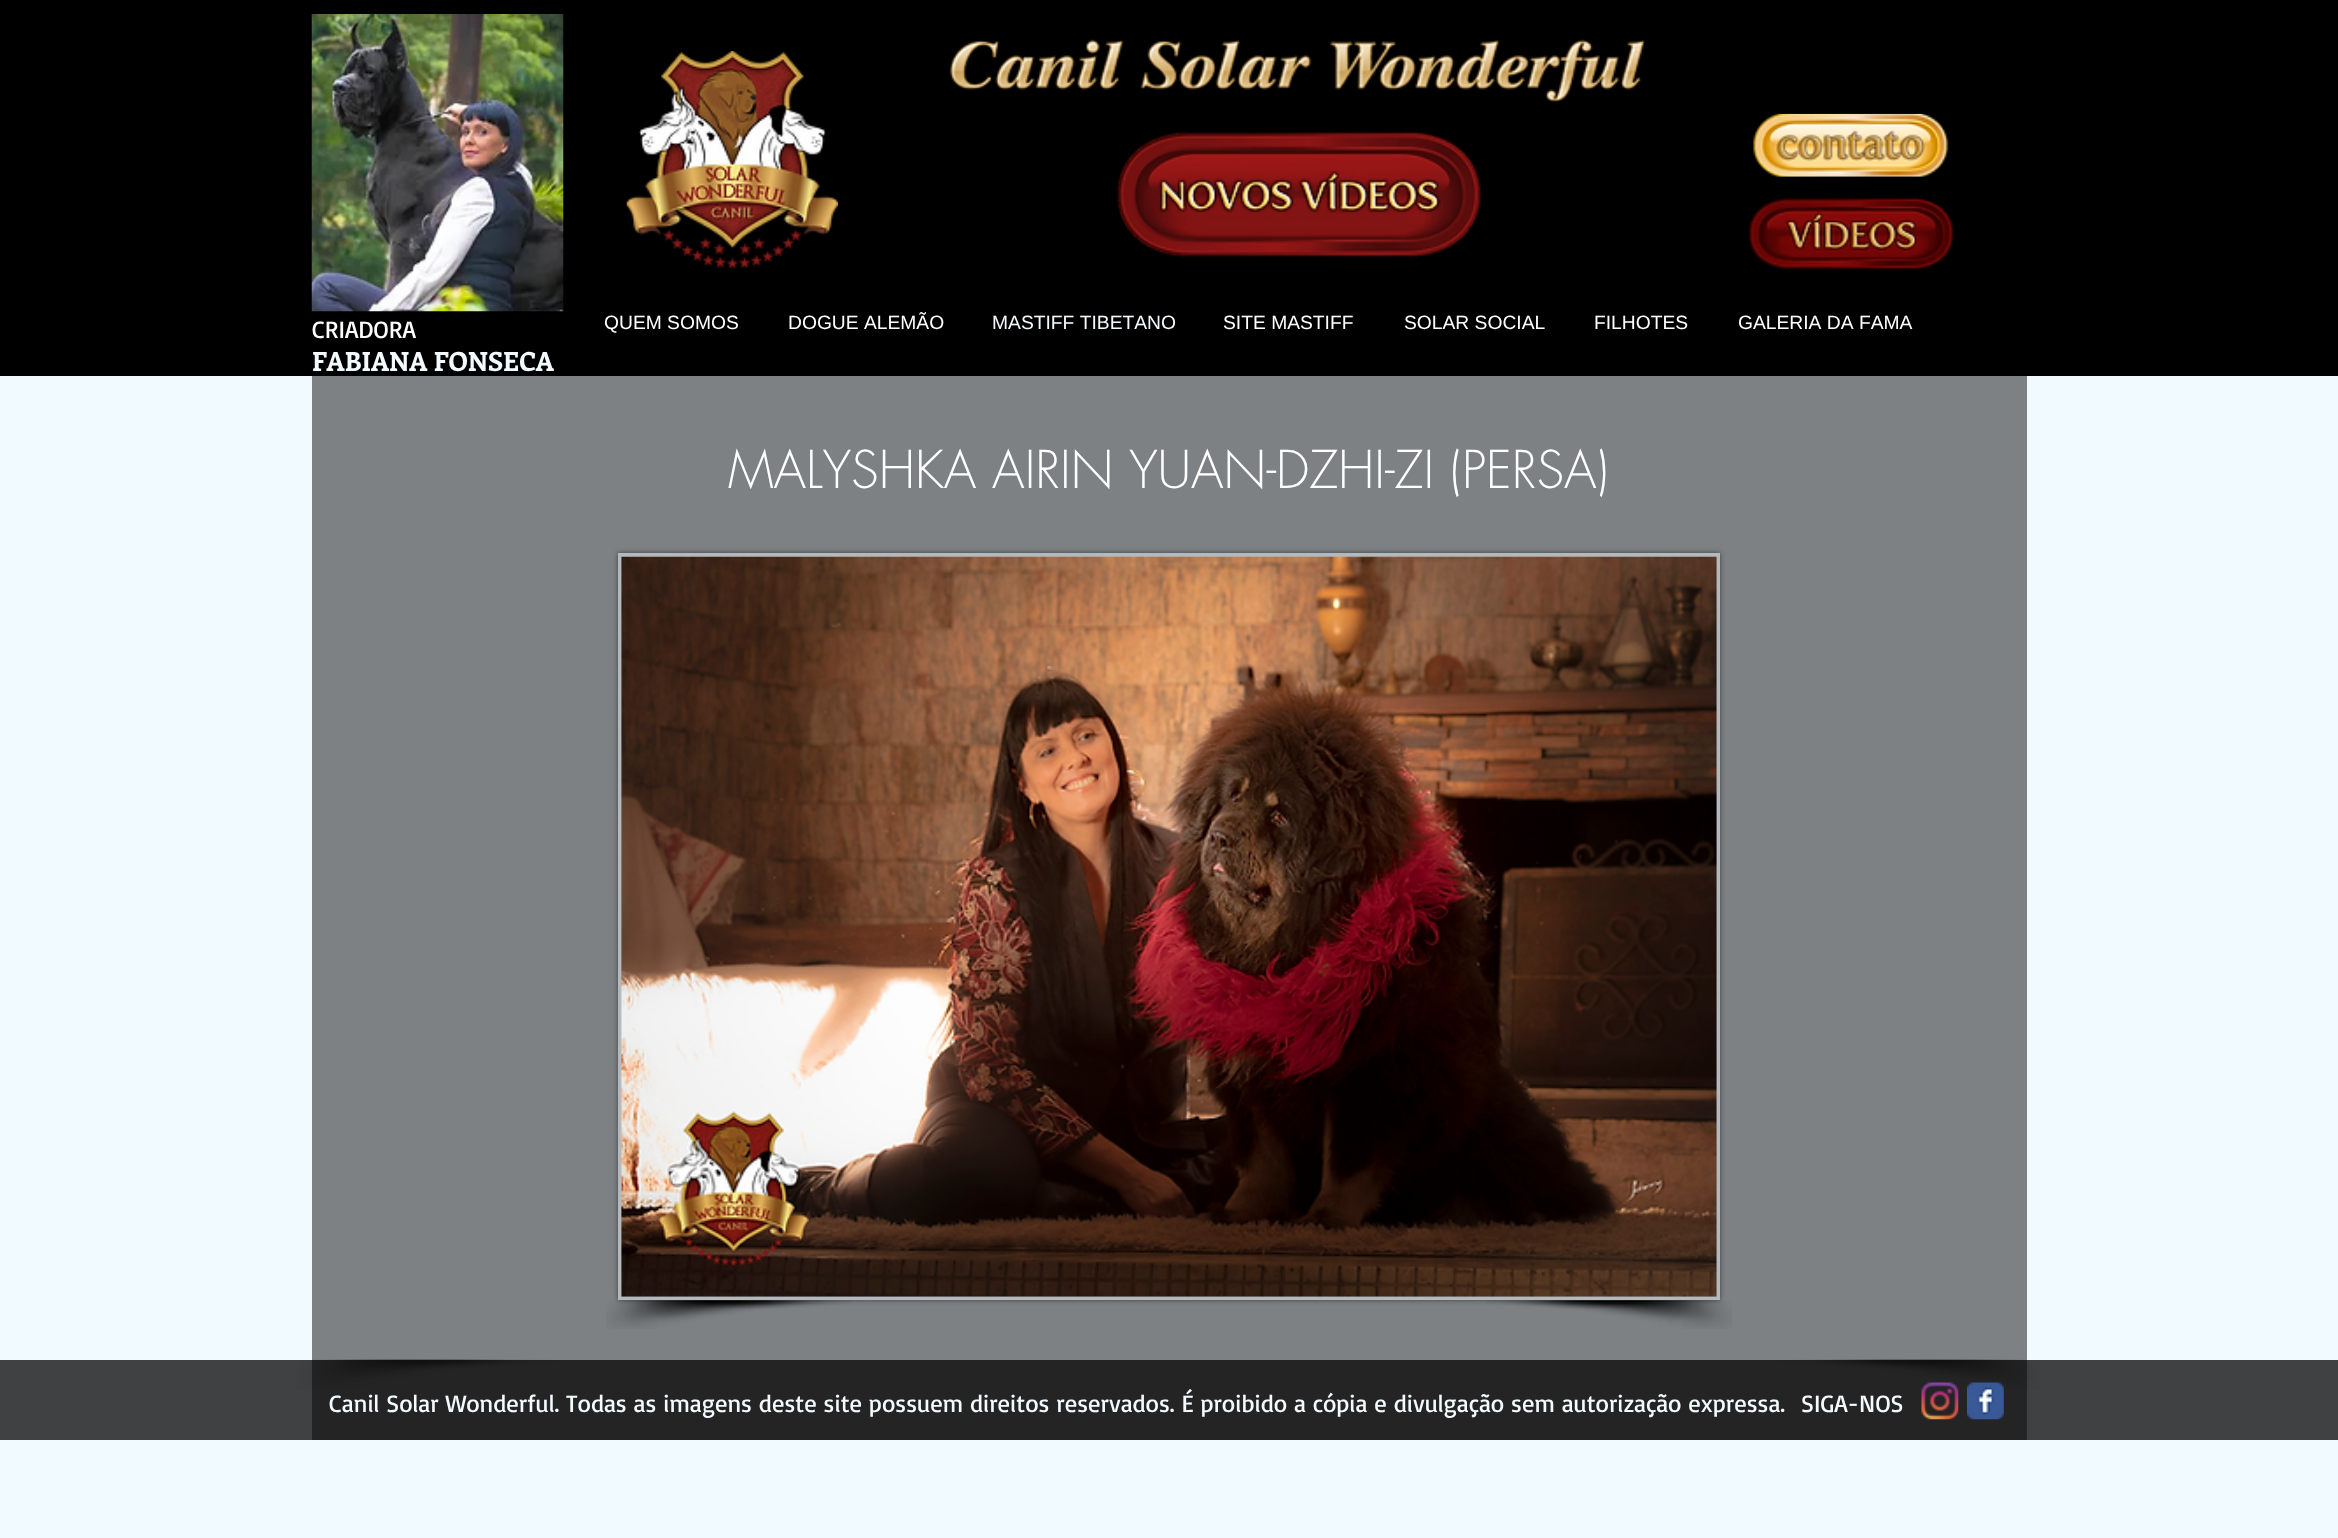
async function draw(canvas) {
	canvas.width = 2338;
	canvas.height = 1538;
	const c = canvas.getContext('2d');
	c.miterLimit = 4;
	c.fontKerning = 'none';
	async function loadImage(src) {
		const img = new Image();
		img.src = src;
		await img.decode();
		return img;
	}

	c.fillStyle = '#f0faff';
	c.fillRect(0, 0, 2338, 1538);
	c.fillStyle = '#000';
	c.fillRect(0, 0, 2338, 376);
	c.drawImage(await loadImage('img1.png'), 311, 14, 253, 298);
	c.drawImage(await loadImage('img2.png'), 626, 50, 213, 218);
	c.drawImage(await loadImage('img3.png'), 949, 39, 697, 63);
	c.drawImage(await loadImage('img4.png'), 1753, 113, 196, 64);
	c.drawImage(await loadImage('img5.png'), 1116, 131, 365, 127);
	c.drawImage(await loadImage('img6.png'), 1748, 197, 206, 73);
	c.font = '24.5px Basic';
	c.fillStyle = '#fff';
	c.fillText('CRIADORA', 312, 338);
	c.font = '19.25px Liberation Sans';
	c.fillText('QUEM SOMOS', 604, 329);
	c.fillText('DOGUE ALEMÃO', 788, 329);
	c.fillStyle = '#f4fbff';
	c.fillText('MASTIFF TIBETANO', 992, 329);
	c.fillStyle = '#fff';
	for (const [text, x, y] of [
		['SITE MASTIFF', 1223, 329],
		['SOLAR SOCIAL', 1404, 329],
		['FILHOTES', 1594, 329],
		['GALERIA DA FAMA', 1738, 329],
	]) {
		c.fillText(text, x, y);
	}
	c.font = 'bold 26.25px Enriqueta';
	c.fillStyle = '#f4fbff';
	c.fillText('FABIANA FONSECA', 312, 371);
	for (const [x, y, w, h, color] of [
		[312, 376, 1715, 984, '#7d8183'],
		[0, 1360, 2338, 80, '#404142'],
		[312, 1360, 1715, 80, '#242425'],
	]) {
		c.fillStyle = color;
		c.fillRect(x, y, w, h);
	}
	c.drawImage(await loadImage('img7.png'), 297, 1359, 268, 31);
	c.drawImage(await loadImage('img8.png'), 1773, 1359, 268, 31);
	c.font = '300 50.75px futura';
	c.fillStyle = '#fff';
	c.fillText('MALYSHKA AIRIN YUAN-DZHI-ZI (PERSA)', 728, 488);
	c.fillStyle = '#00000080';
	c.filter = 'blur(2.5px)';
	c.beginPath();
	c.rect(618, 553, 1102, 747);
	c.fill();
	c.filter = 'none';
	c.strokeStyle = '#b3b9bd';
	c.lineWidth = 4;
	c.strokeRect(620, 555, 1098, 743);
	c.drawImage(await loadImage('img9.png'), 621, 556, 1096, 741);
	c.drawImage(await loadImage('img10.png'), 606, 1300, 246, 29);
	c.drawImage(await loadImage('img11.png'), 1486, 1300, 246, 29);
	c.font = '24.5px Basic';
	c.fillStyle = '#f4fbff';
	c.fillText('Canil Solar Wonderful. Todas as imagens deste site possuem direitos reservados. É proibido a cópia e divulgação sem autorização expressa.', 329, 1412);
	c.fillText('SIGA-NOS', 1801, 1412);
	c.drawImage(await loadImage('img12.png'), 1921, 1382, 38, 38);
	c.drawImage(await loadImage('img13.png'), 1967, 1382, 37, 38);
}

draw(document.querySelector('canvas'));
